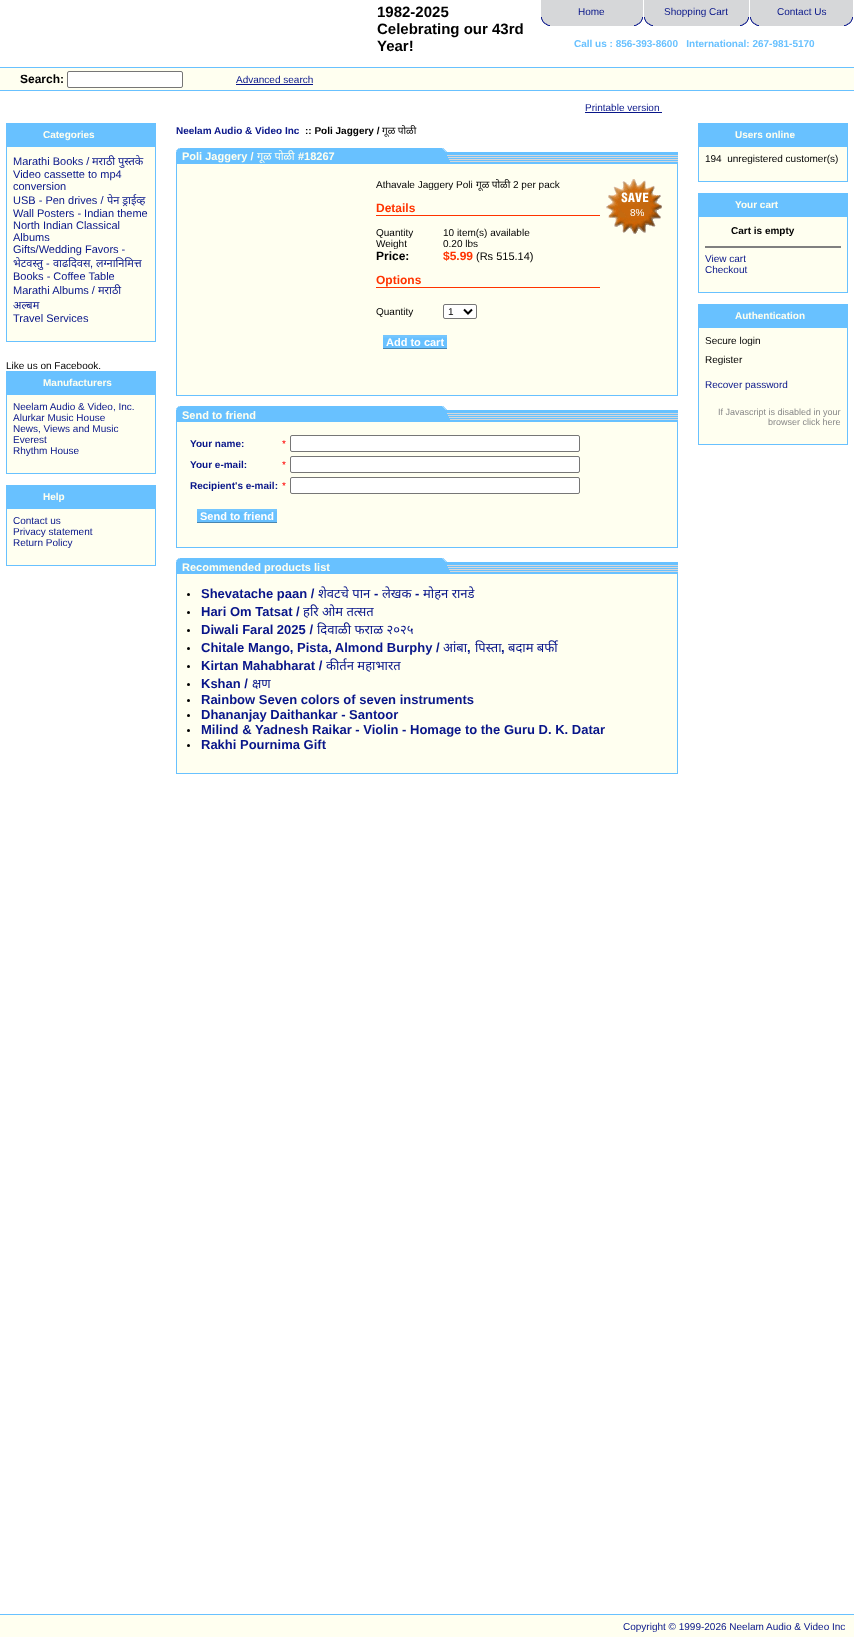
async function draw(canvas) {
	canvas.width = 854;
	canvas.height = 1637;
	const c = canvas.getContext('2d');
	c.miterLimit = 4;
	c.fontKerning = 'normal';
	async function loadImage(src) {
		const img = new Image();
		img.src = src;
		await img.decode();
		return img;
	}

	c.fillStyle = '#fff';
	c.fillRect(0, 0, 854, 1637);
	c.font = 'bold 15px Liberation Sans';
	c.fillStyle = '#000';
	for (const [text, x, y] of [
		['1982-2025', 377, 17],
		['Celebrating our 43rd', 377, 34],
		['Year!', 377, 51],
	]) {
		c.fillText(text, x, y);
	}
	c.fillStyle = '#d6d7d9';
	c.fillRect(541, 0, 102, 5);
	c.fillRect(541, 5, 102, 12);
	c.font = '10px Liberation Sans';
	c.fillStyle = '#081589';
	c.fillText('Home', 578, 15);
	c.drawImage(await loadImage('img1.png'), 541, 17, 9, 9);
	c.fillStyle = '#d6d7d9';
	c.fillRect(550, 17, 84, 9);
	c.drawImage(await loadImage('img2.png'), 634, 17, 9, 9);
	for (const [x, y, w, h, color] of [
		[644, 0, 105, 5, '#d6d7d9'],
		[644, 5, 105, 12, '#d6d7d9'],
		[653, 17, 87, 9, '#d6d7d9'],
	]) {
		c.fillStyle = color;
		c.fillRect(x, y, w, h);
	}
	c.fillStyle = '#081589';
	c.fillText('Shopping Cart', 664, 15);
	c.drawImage(await loadImage('img1.png'), 644, 17, 9, 9);
	c.drawImage(await loadImage('img2.png'), 740, 17, 9, 9);
	c.fillStyle = '#d6d7d9';
	c.fillRect(750, 0, 103, 5);
	c.fillRect(750, 5, 103, 12);
	c.fillStyle = '#081589';
	c.fillText('Contact Us', 777, 15);
	c.drawImage(await loadImage('img1.png'), 750, 17, 9, 9);
	c.fillStyle = '#d6d7d9';
	c.fillRect(759, 17, 85, 9);
	c.drawImage(await loadImage('img2.png'), 844, 17, 9, 9);
	c.font = 'bold 10px Liberation Sans';
	c.fillStyle = '#68c1ff';
	c.fillText('Call us : 856-393-8600   International: 267-981-5170', 574, 47);
	c.fillRect(0, 67, 854, 1);
	c.fillStyle = '#fffff0';
	c.fillRect(0, 68, 854, 22);
	c.font = 'bold 12px Liberation Sans';
	c.fillStyle = '#000';
	c.fillText('Search:', 20, 83);
	c.fillStyle = '#fff';
	c.beginPath();
	c.roundRect(67.5, 71.5, 115, 16, 1.5);
	c.fill();
	c.strokeStyle = '#767676';
	c.stroke();
	c.font = '10px Liberation Sans';
	c.fillStyle = '#081589';
	c.fillText('Advanced search', 236, 83);
	c.fillRect(236, 84, 77, 1);
	c.fillStyle = '#68c1ff';
	c.fillRect(0, 90, 854, 1);
	c.fillStyle = '#081589';
	c.fillText('Printable version', 585, 111);
	c.fillRect(585, 112, 77, 1);
	c.fillStyle = '#68c1ff';
	c.fillRect(6, 123, 150, 219);
	c.font = 'bold 10px Liberation Sans';
	c.fillStyle = '#fffff0';
	c.fillText('Categories', 43, 138);
	c.fillRect(7, 147, 148, 194);
	c.font = '11px Liberation Sans';
	c.fillStyle = '#081589';
	c.fillText('Marathi Books /', 13, 165);
	c.font = '11px Noto Sans';
	c.fillText('मराठी पुस्तके', 92, 165);
	c.font = '11px Liberation Sans';
	for (const [text, x, y] of [
		['Video cassette to mp4', 13, 178],
		['conversion', 13, 190],
		['USB - Pen drives /', 13, 204],
	]) {
		c.fillText(text, x, y);
	}
	c.font = '11px Noto Sans';
	c.fillText('पेन ड्राईव्ह', 107, 204);
	c.font = '11px Liberation Sans';
	for (const [text, x, y] of [
		['Wall Posters - Indian theme', 13, 217],
		['North Indian Classical', 13, 229],
		['Albums', 13, 241],
		['Gifts/Wedding Favors -', 13, 253],
	]) {
		c.fillText(text, x, y);
	}
	c.font = '11px Noto Sans';
	c.fillText('भेटवस्तु', 13, 267);
	c.font = '11px Liberation Sans';
	c.fillText('-', 46, 267);
	c.font = '11px Noto Sans';
	c.fillText('वाढदिवस', 53, 267);
	c.fillText('लग्नानिमित्त', 96, 267);
	c.font = '11px Liberation Sans';
	for (const [text, x, y] of [
		[',', 90, 267],
		['Books - Coffee Table', 13, 280],
		['Marathi Albums /', 13, 294],
	]) {
		c.fillText(text, x, y);
	}
	c.font = '11px Noto Sans';
	c.fillText('मराठी', 98, 294);
	c.fillText('अल्बम', 13, 309);
	c.font = '11px Liberation Sans';
	c.fillText('Travel Services', 13, 322);
	c.font = '10px Liberation Sans';
	c.fillStyle = '#000';
	c.fillText('Like us on Facebook.', 6, 369);
	c.fillStyle = '#68c1ff';
	c.fillRect(6, 371, 150, 103);
	c.font = 'bold 10px Liberation Sans';
	c.fillStyle = '#fffff0';
	c.fillText('Manufacturers', 43, 386);
	c.fillRect(7, 395, 148, 78);
	c.font = '10px Liberation Sans';
	c.fillStyle = '#081589';
	for (const [text, x, y] of [
		['Neelam Audio & Video, Inc.', 13, 410],
		['Alurkar Music House', 13, 421],
		['News, Views and Music', 13, 432],
		['Everest', 13, 443],
		['Rhythm House', 13, 454],
	]) {
		c.fillText(text, x, y);
	}
	c.fillStyle = '#68c1ff';
	c.fillRect(6, 485, 150, 81);
	c.font = 'bold 10px Liberation Sans';
	c.fillStyle = '#fffff0';
	c.fillText('Help', 43, 500);
	c.fillRect(7, 509, 148, 56);
	c.font = '10px Liberation Sans';
	c.fillStyle = '#081589';
	for (const [text, x, y] of [
		['Contact us', 13, 524],
		['Privacy statement', 13, 535],
		['Return Policy', 13, 546],
	]) {
		c.fillText(text, x, y);
	}
	c.font = 'bold 10px Liberation Sans';
	c.fillText('Neelam Audio & Video Inc', 176, 134);
	c.fillStyle = '#000';
	c.fillText(':: Poli Jaggery /', 305, 134);
	c.font = '10px Noto Sans';
	c.fillText('गूळ पोळी', 382, 134);
	c.drawImage(await loadImage('img3.png'), 176, 148, 502, 15);
	c.font = 'bold 11px Liberation Sans';
	c.fillStyle = '#fffff0';
	c.fillText('Poli Jaggery /', 182, 160);
	c.font = '11px Noto Sans';
	c.fillText('गूळ पोळी', 257, 160);
	c.font = 'bold 11px Liberation Sans';
	c.fillText('#18267', 298, 160);
	c.fillStyle = '#68c1ff';
	c.fillRect(176, 163, 502, 233);
	c.fillStyle = '#fffff0';
	c.fillRect(177, 164, 500, 231);
	c.font = '10px Liberation Sans';
	c.fillStyle = '#000';
	c.fillText('Athavale Jaggery Poli', 376, 188);
	c.font = '10px Noto Sans';
	c.fillText('गूळ पोळी', 476, 188);
	c.font = '10px Liberation Sans';
	c.fillText('2 per pack', 513, 188);
	c.font = 'bold 12px Liberation Sans';
	c.fillStyle = '#f30';
	c.fillText('Details', 376, 212);
	c.fillRect(376, 215, 224, 1);
	c.font = '10px Liberation Sans';
	c.fillStyle = '#000';
	for (const [text, x, y] of [
		['Quantity', 376, 236],
		['10 item(s) available', 443, 236],
		['Weight', 376, 247],
		['0.20 lbs', 443, 247],
	]) {
		c.fillText(text, x, y);
	}
	c.font = 'bold 12px Liberation Sans';
	c.fillText('Price:', 376, 260);
	c.fillStyle = '#f30';
	c.fillText('$5.99', 443, 260);
	c.font = '11px Liberation Sans';
	c.fillStyle = '#000';
	c.fillText('(Rs 515.14)', 476, 260);
	c.font = 'bold 12px Liberation Sans';
	c.fillStyle = '#f30';
	c.fillText('Options', 376, 284);
	c.fillRect(376, 287, 224, 1);
	c.font = '10px Liberation Sans';
	c.fillStyle = '#000';
	c.fillText('Quantity', 376, 315);
	c.fillStyle = '#fff';
	c.beginPath();
	c.roundRect(443.5, 304.5, 33, 14, 1.5);
	c.fill();
	c.stroke();
	c.beginPath();
	c.moveTo(464, 309.5);
	c.lineTo(468, 313.5);
	c.lineTo(472, 309.5);
	c.strokeStyle = '#000';
	c.lineWidth = 2;
	c.stroke();
	c.fillStyle = '#000';
	c.fillText('1', 448, 315);
	c.drawImage(await loadImage('img4.png'), 383, 335, 64, 14);
	c.drawImage(await loadImage('img5.png'), 383, 336, 64, 2);
	c.font = 'bold 11px Liberation Sans';
	c.fillStyle = '#fff';
	c.fillText('Add to cart', 386, 346);
	c.fillStyle = '#68c1ff';
	c.fillRect(383, 347, 64, 1);
	c.drawImage(await loadImage('img6.png'), 606, 179, 56, 55);
	c.font = '10px Liberation Sans';
	c.fillStyle = '#fff';
	c.fillText('8%', 630, 216);
	c.drawImage(await loadImage('img3.png'), 176, 406, 502, 15);
	c.font = 'bold 11px Liberation Sans';
	c.fillStyle = '#fffff0';
	c.fillText('Send to friend', 182, 419);
	c.fillStyle = '#68c1ff';
	c.fillRect(176, 421, 502, 127);
	c.fillStyle = '#fffff0';
	c.fillRect(177, 422, 500, 125);
	c.font = 'bold 10px Liberation Sans';
	c.fillStyle = '#081589';
	c.fillText('Your name:', 190, 447);
	c.font = '10px Liberation Sans';
	c.fillStyle = '#f00';
	c.fillText('*', 282, 447);
	c.fillStyle = '#fff';
	c.beginPath();
	c.roundRect(290.5, 435.5, 289, 16, 1.5);
	c.fill();
	c.strokeStyle = '#767676';
	c.lineWidth = 1;
	c.stroke();
	c.font = 'bold 10px Liberation Sans';
	c.fillStyle = '#081589';
	c.fillText('Your e-mail:', 190, 468);
	c.font = '10px Liberation Sans';
	c.fillStyle = '#f00';
	c.fillText('*', 282, 468);
	c.fillStyle = '#fff';
	c.beginPath();
	c.roundRect(290.5, 456.5, 289, 16, 1.5);
	c.fill();
	c.stroke();
	c.font = 'bold 10px Liberation Sans';
	c.fillStyle = '#081589';
	c.fillText('Recipient\'s e-mail:', 190, 489);
	c.font = '10px Liberation Sans';
	c.fillStyle = '#f00';
	c.fillText('*', 282, 489);
	c.fillStyle = '#fff';
	c.beginPath();
	c.roundRect(290.5, 477.5, 289, 16, 1.5);
	c.fill();
	c.stroke();
	c.drawImage(await loadImage('img7.png'), 197, 509, 80, 14);
	c.drawImage(await loadImage('img8.png'), 197, 510, 80, 2);
	c.font = 'bold 11px Liberation Sans';
	c.fillText('Send to friend', 200, 520);
	c.fillStyle = '#68c1ff';
	c.fillRect(197, 521, 80, 1);
	c.drawImage(await loadImage('img3.png'), 176, 558, 502, 15);
	c.fillRect(176, 573, 502, 201);
	c.fillStyle = '#fffff0';
	c.fillText('Recommended products list', 182, 571);
	c.fillRect(177, 574, 500, 199);
	c.fillStyle = '#000';
	c.beginPath();
	c.arc(188.5, 594.5, 1.5, 0, 2 * Math.PI);
	c.fill();
	c.font = 'bold 13px Liberation Sans';
	c.fillStyle = '#081589';
	c.fillText('Shevatache paan /', 201, 598);
	c.font = '13px Noto Sans';
	c.fillText('शेवटचे पान', 318, 598);
	c.font = 'bold 13px Liberation Sans';
	c.fillText('-', 374, 598);
	c.font = '13px Noto Sans';
	c.fillText('लेखक', 382, 598);
	c.fillText('मोहन रानडे', 423, 598);
	c.font = 'bold 13px Liberation Sans';
	c.fillText('-', 415, 598);
	c.fillStyle = '#000';
	c.beginPath();
	c.arc(188.5, 612.5, 1.5, 0, 2 * Math.PI);
	c.fill();
	c.fillStyle = '#081589';
	c.fillText('Hari Om Tatsat /', 201, 616);
	c.font = '13px Noto Sans';
	c.fillText('हरि ओम तत्सत', 303, 616);
	c.fillStyle = '#000';
	c.beginPath();
	c.arc(188.5, 630.5, 1.5, 0, 2 * Math.PI);
	c.fill();
	c.font = 'bold 13px Liberation Sans';
	c.fillStyle = '#081589';
	c.fillText('Diwali Faral 2025 /', 201, 634);
	c.font = '13px Noto Sans';
	c.fillText('दिवाळी फराळ २०२५', 317, 634);
	c.fillStyle = '#000';
	c.beginPath();
	c.arc(188.5, 648.5, 1.5, 0, 2 * Math.PI);
	c.fill();
	c.font = 'bold 13px Liberation Sans';
	c.fillStyle = '#081589';
	c.fillText('Chitale Mango, Pista, Almond Burphy /', 201, 652);
	c.font = '13px Noto Sans';
	for (const [text, x, y] of [
		['आंबा', 443, 652],
		['पिस्ता', 475, 652],
		['बदाम बर्फी', 508, 652],
	]) {
		c.fillText(text, x, y);
	}
	c.font = 'bold 13px Liberation Sans';
	c.fillText(',', 467, 652);
	c.fillText(',', 501, 652);
	c.fillStyle = '#000';
	c.beginPath();
	c.arc(188.5, 666.5, 1.5, 0, 2 * Math.PI);
	c.fill();
	c.fillStyle = '#081589';
	c.fillText('Kirtan Mahabharat /', 201, 670);
	c.font = '13px Noto Sans';
	c.fillText('कीर्तन महाभारत', 326, 670);
	c.fillStyle = '#000';
	c.beginPath();
	c.arc(188.5, 684.5, 1.5, 0, 2 * Math.PI);
	c.fill();
	c.font = 'bold 13px Liberation Sans';
	c.fillStyle = '#081589';
	c.fillText('Kshan /', 201, 688);
	c.font = '13px Noto Sans';
	c.fillText('क्षण', 252, 688);
	c.fillStyle = '#000';
	c.beginPath();
	c.arc(188.5, 700.5, 1.5, 0, 2 * Math.PI);
	c.fill();
	c.font = 'bold 13px Liberation Sans';
	c.fillStyle = '#081589';
	c.fillText('Rainbow Seven colors of seven instruments', 201, 704);
	c.fillStyle = '#000';
	c.beginPath();
	c.arc(188.5, 715.5, 1.5, 0, 2 * Math.PI);
	c.fill();
	c.fillStyle = '#081589';
	c.fillText('Dhananjay Daithankar - Santoor', 201, 719);
	c.fillStyle = '#000';
	c.beginPath();
	c.arc(188.5, 730.5, 1.5, 0, 2 * Math.PI);
	c.fill();
	c.fillStyle = '#081589';
	c.fillText('Milind & Yadnesh Raikar - Violin - Homage to the Guru D. K. Datar', 201, 734);
	c.fillStyle = '#000';
	c.beginPath();
	c.arc(188.5, 745.5, 1.5, 0, 2 * Math.PI);
	c.fill();
	c.fillStyle = '#081589';
	c.fillText('Rakhi Pournima Gift', 201, 749);
	c.fillStyle = '#68c1ff';
	c.fillRect(698, 123, 150, 59);
	c.font = 'bold 10px Liberation Sans';
	c.fillStyle = '#fffff0';
	c.fillText('Users online', 735, 138);
	c.fillRect(699, 147, 148, 34);
	c.font = '10px Liberation Sans';
	c.fillStyle = '#000';
	c.fillText('194  unregistered customer(s)', 705, 162);
	c.fillStyle = '#68c1ff';
	c.fillRect(698, 193, 150, 100);
	c.font = 'bold 10px Liberation Sans';
	c.fillStyle = '#fffff0';
	c.fillText('Your cart', 735, 208);
	c.fillRect(699, 217, 148, 75);
	c.fillStyle = '#000';
	c.fillText('Cart is empty', 731, 234);
	for (const [x, y, w, h, color] of [
		[706, 247, 134, 1, '#808080'],
		[705, 246, 136, 1, '#808080'],
		[840, 246, 1, 2, '#808080'],
		[705, 246, 1, 2, '#808080'],
	]) {
		c.fillStyle = color;
		c.fillRect(x, y, w, h);
	}
	c.font = '10px Liberation Sans';
	c.fillStyle = '#081589';
	c.fillText('View cart', 705, 262);
	c.fillText('Checkout', 705, 273);
	c.fillStyle = '#68c1ff';
	c.fillRect(698, 304, 150, 141);
	c.font = 'bold 10px Liberation Sans';
	c.fillStyle = '#fffff0';
	c.fillText('Authentication', 735, 319);
	c.fillRect(699, 328, 148, 116);
	c.font = '10px Liberation Sans';
	c.fillStyle = '#000';
	c.fillText('Secure login', 705, 344);
	c.fillText('Register', 705, 363);
	c.fillStyle = '#081589';
	c.fillText('Recover password', 705, 388);
	c.font = '9px Liberation Sans';
	c.fillStyle = '#888';
	c.fillText('If Javascript is disabled in your', 718, 415);
	c.fillText('browser click here', 768, 425);
	c.fillStyle = '#68c1ff';
	c.fillRect(0, 1614, 854, 1);
	c.fillStyle = '#fffff0';
	c.fillRect(0, 1615, 854, 22);
	c.font = '10px Liberation Sans';
	c.fillStyle = '#081589';
	c.fillText('Copyright © 1999-2026 Neelam Audio & Video Inc', 623, 1630);
}

draw(document.querySelector('canvas'));
